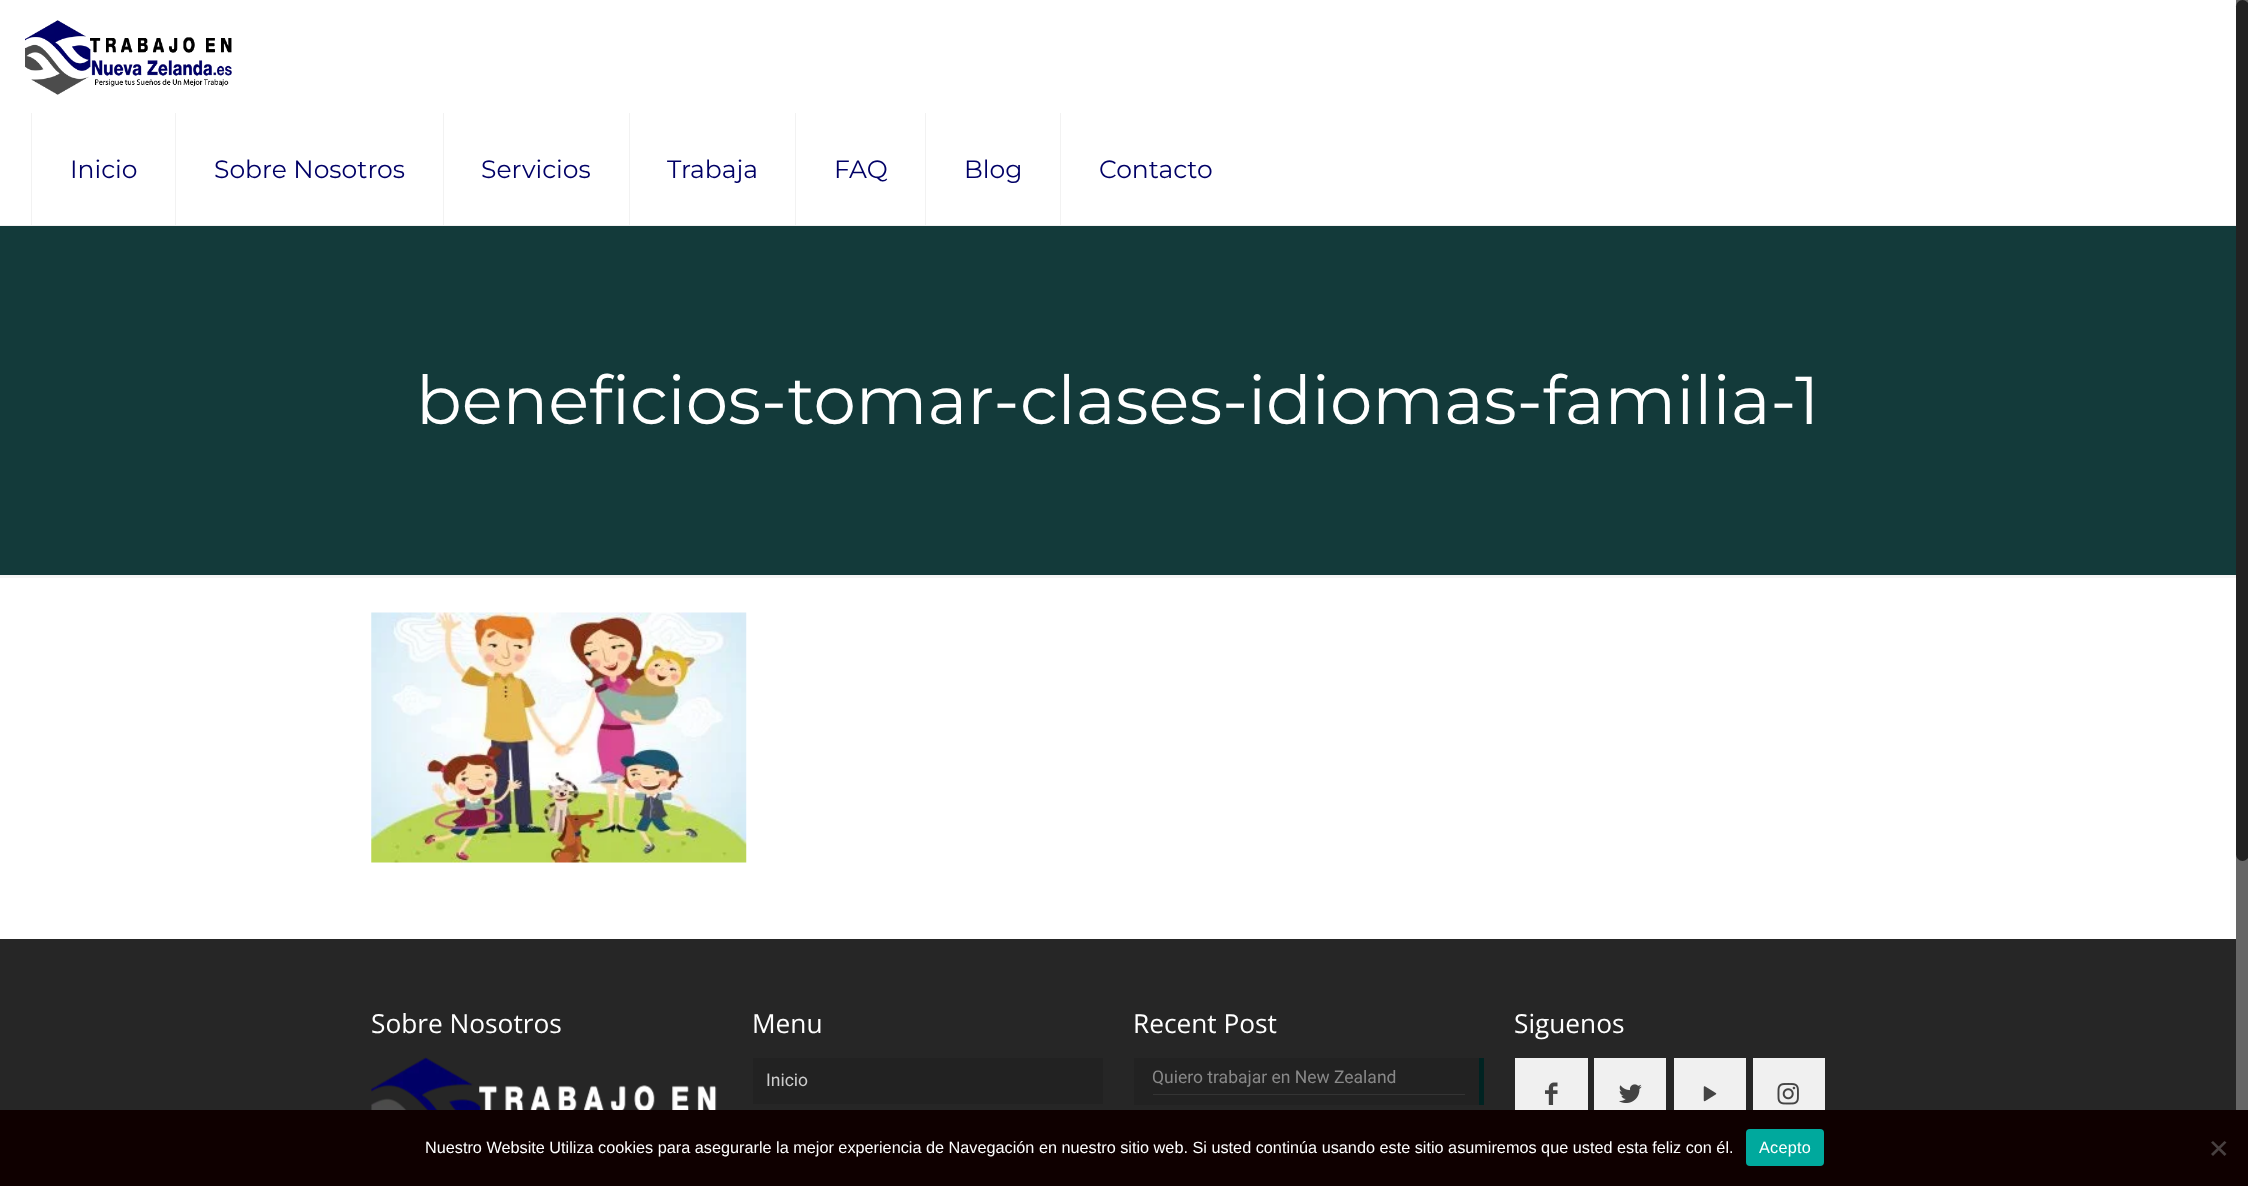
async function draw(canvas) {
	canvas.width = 2248;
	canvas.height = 1186;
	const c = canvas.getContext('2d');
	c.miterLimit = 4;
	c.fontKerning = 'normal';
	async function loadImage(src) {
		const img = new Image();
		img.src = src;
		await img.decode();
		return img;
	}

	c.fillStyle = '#fff';
	c.fillRect(0, 0, 2248, 1186);
	c.fillStyle = '#133a3a';
	c.fillRect(0, 226, 2236, 349);
	c.fillStyle = '#f2f2f2';
	c.fillRect(0, 225, 2236, 1);
	c.drawImage(await loadImage('img1.png'), 25, 20, 207, 75);
	c.fillRect(175, 113, 1, 112);
	c.fillRect(31, 113, 1, 112);
	c.font = '25px Montserrat';
	c.fillStyle = '#006';
	c.fillText('Inicio', 70, 178);
	c.fillStyle = '#f2f2f2';
	c.fillRect(443, 113, 1, 112);
	c.fillStyle = '#006';
	c.fillText('Sobre Nosotros', 214, 178);
	c.fillStyle = '#f2f2f2';
	c.fillRect(629, 113, 1, 112);
	c.fillStyle = '#006';
	c.fillText('Servicios', 481, 178);
	c.fillStyle = '#f2f2f2';
	c.fillRect(795, 113, 1, 112);
	c.fillStyle = '#006';
	c.fillText('Trabaja', 667, 178);
	c.fillStyle = '#f2f2f2';
	c.fillRect(925, 113, 1, 112);
	c.fillStyle = '#006';
	c.fillText('FAQ', 834, 178);
	c.fillStyle = '#f2f2f2';
	c.fillRect(1060, 113, 1, 112);
	c.fillStyle = '#006';
	c.fillText('Blog', 964, 178);
	c.fillText('Contacto', 1099, 178);
	c.font = '67.5px Montserrat';
	c.fillStyle = '#fff';
	c.fillText('beneficios-tomar-clases-idiomas-familia-1', 416, 424);
	c.fillStyle = '#f5f5f5';
	c.fillRect(0, 575, 2236, 3);
	c.drawImage(await loadImage('img2.png'), 371, 612, 376, 251);
	c.fillStyle = '#262626';
	c.fillRect(0, 939, 2236, 171);
	c.font = '26.25px Open Sans';
	c.fillStyle = '#fff';
	c.fillText('Sobre Nosotros', 371, 1033);
	c.drawImage(await loadImage('img3.png'), 371, 1057, 346, 53);
	c.fillText('Menu', 752, 1033);
	c.fillStyle = '#222';
	c.fillRect(753, 1058, 350, 46);
	c.font = '17.5px Roboto';
	c.fillStyle = '#ccc';
	c.fillText('Inicio', 766, 1086);
	c.font = '26.25px Open Sans';
	c.fillStyle = '#fff';
	c.fillText('Recent Post', 1133, 1033);
	c.fillStyle = '#222';
	c.fillRect(1134, 1058, 345, 47);
	c.fillStyle = '#343434';
	c.fillRect(1153, 1094, 312, 1);
	c.font = '17.5px Roboto';
	c.fillStyle = '#888';
	c.fillText('Quiero trabajar en New Zealand', 1152, 1083);
	c.fillStyle = '#002322';
	c.fillRect(1479, 1058, 5, 47);
	c.font = '26.25px Open Sans';
	c.fillStyle = '#fff';
	c.fillText('Siguenos', 1514, 1033);
	c.fillStyle = '#f0f0f0';
	c.fillRect(1515, 1058, 73, 52);
	c.drawImage(await loadImage('img4.png'), 1545, 1082, 13, 23);
	c.fillRect(1594, 1058, 72, 52);
	c.drawImage(await loadImage('img5.png'), 1619, 1084, 23, 19);
	c.fillRect(1674, 1058, 72, 52);
	c.drawImage(await loadImage('img6.png'), 1703, 1086, 14, 16);
	c.fillRect(1753, 1058, 72, 52);
	c.drawImage(await loadImage('img7.png'), 1777, 1083, 22, 22);
	c.fillStyle = '#666';
	c.fillRect(2236, 0, 12, 1110);
	c.fillStyle = '#222';
	c.beginPath();
	c.roundRect(2236, 0, 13, 861, 6.5);
	c.fill();
	c.fillStyle = '#0f0000';
	c.fillRect(0, 1110, 2248, 76);
	c.font = '16.25px Liberation Sans';
	c.fillStyle = '#fff';
	c.fillText('Nuestro Website Utiliza cookies para asegurarle la mejor experiencia de Navegación en nuestro sitio web. Si usted continúa usando este sitio asumiremos que usted esta feliz con él.', 425, 1153);
	c.fillStyle = '#00a99d';
	c.beginPath();
	c.roundRect(1746, 1129, 78, 37, 4);
	c.fill();
	c.letterSpacing = '0.25px';
	c.fillStyle = '#fff';
	c.fillText('Acepto', 1759, 1153);
	c.fillStyle = '#484040';
	c.beginPath();
	c.moveTo(2224.5, 1141);
	c.lineTo(2226.5, 1142.5);
	c.lineTo(2213, 1156);
	c.lineTo(2211, 1154);
	c.closePath();
	c.fill();
	c.beginPath();
	c.moveTo(2211, 1142.5);
	c.lineTo(2213, 1141);
	c.lineTo(2226.5, 1154);
	c.lineTo(2224.5, 1156);
	c.closePath();
	c.fill();
}

draw(document.querySelector('canvas'));
